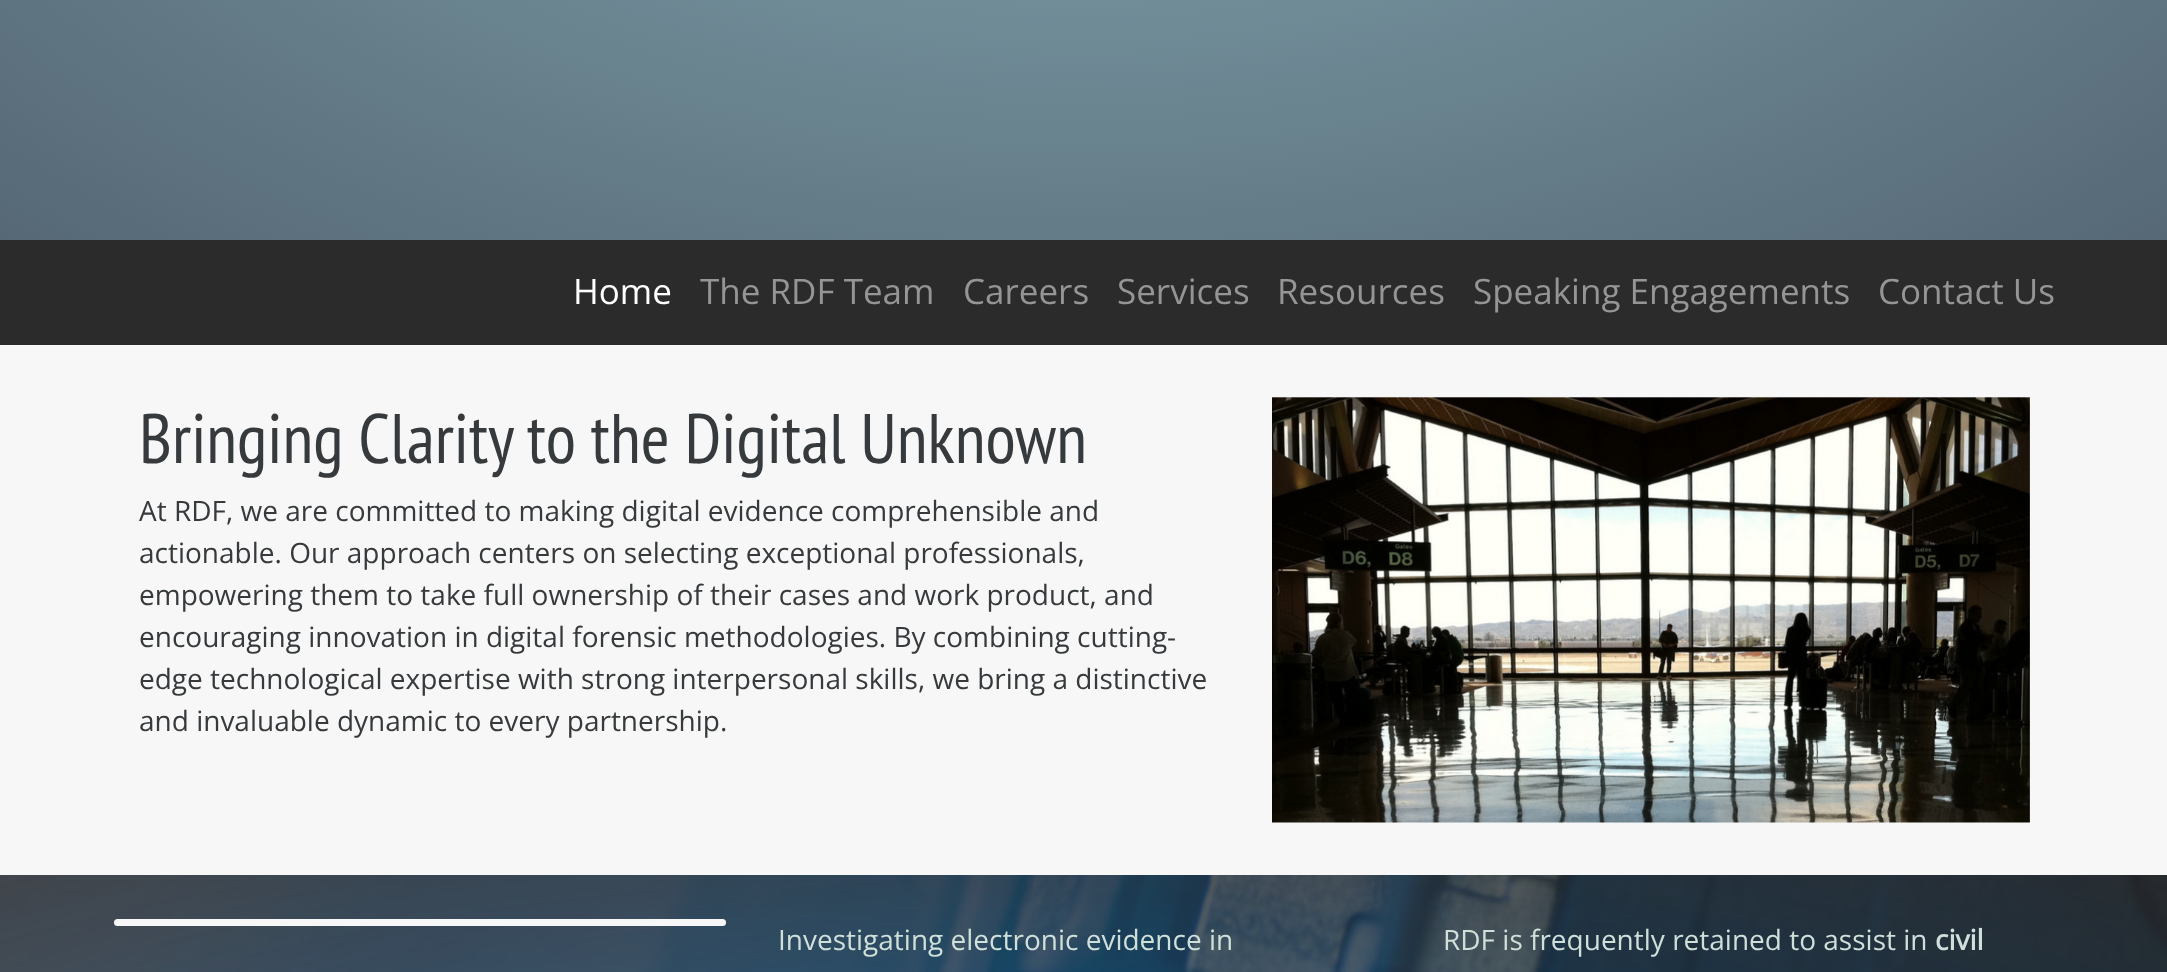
async function draw(canvas) {
	canvas.width = 2167;
	canvas.height = 972;
	const c = canvas.getContext('2d');
	c.miterLimit = 4;
	c.fontKerning = 'normal';
	async function loadImage(src) {
		const img = new Image();
		img.src = src;
		await img.decode();
		return img;
	}
	let gradient;

	c.fillStyle = '#fff';
	c.fillRect(0, 0, 2167, 972);
	gradient = c.createRadialGradient(1084, -658.02, 0, 1084, -658.02, 1533);
	gradient.addColorStop(0, '#84a9b3');
	gradient.addColorStop(1, '#566875');
	c.fillStyle = gradient;
	c.beginPath();
	c.rect(0, 0, 2167, 240);
	c.save();
	c.clip();
	c.scale(1, 862 / 1533);
	c.fillRect(0, 0, 2167, 1729);
	c.restore();
	c.fillStyle = '#2b2b2b';
	c.fillRect(0, 240, 2167, 105);
	c.font = '35px Open Sans';
	c.fillStyle = '#fff';
	c.fillText('Home', 573, 304);
	c.fillStyle = '#959595';
	for (const [text, x, y] of [
		['The RDF Team', 700, 304],
		['Careers', 963, 304],
		['Services', 1117, 304],
		['Resources', 1277, 304],
		['Speaking Engagements', 1473, 304],
		['Contact Us', 1878, 304],
	]) {
		c.fillText(text, x, y);
	}
	c.fillStyle = '#f7f7f7';
	c.fillRect(0, 345, 2167, 530);
	c.font = '70px PT Sans Narrow';
	c.fillStyle = '#373a3c';
	c.fillText('Bringing Clarity to the Digital Unknown', 139, 463);
	c.font = '28px Open Sans';
	for (const [text, x, y] of [
		['At RDF, we are committed to making digital evidence comprehensible and', 139, 521],
		['actionable. Our approach centers on selecting exceptional professionals,', 139, 563],
		['empowering them to take full ownership of their cases and work product, and', 139, 605],
		['encouraging innovation in digital forensic methodologies. By combining cutting-', 139, 647],
		['edge technological expertise with strong interpersonal skills, we bring a distinctive', 139, 689],
		['and invaluable dynamic to every partnership.', 139, 731],
	]) {
		c.fillText(text, x, y);
	}
	c.drawImage(await loadImage('img1.png'), 1272, 397, 758, 426);
	c.drawImage(await loadImage('img2.png'), 0, 875, 2167, 97);
	c.fillStyle = '#f7f7f7';
	c.beginPath();
	c.roundRect(114, 919, 612, 7, 3.5);
	c.fill();
	c.fillStyle = '#cfdfda';
	c.fillText('Investigating electronic evidence in', 778, 950);
	c.fillText('RDF is frequently retained to assist in', 1443, 950);
	c.font = 'bold 28px Open Sans';
	c.fillText('civil', 1935, 950);
}

draw(document.querySelector('canvas'));
